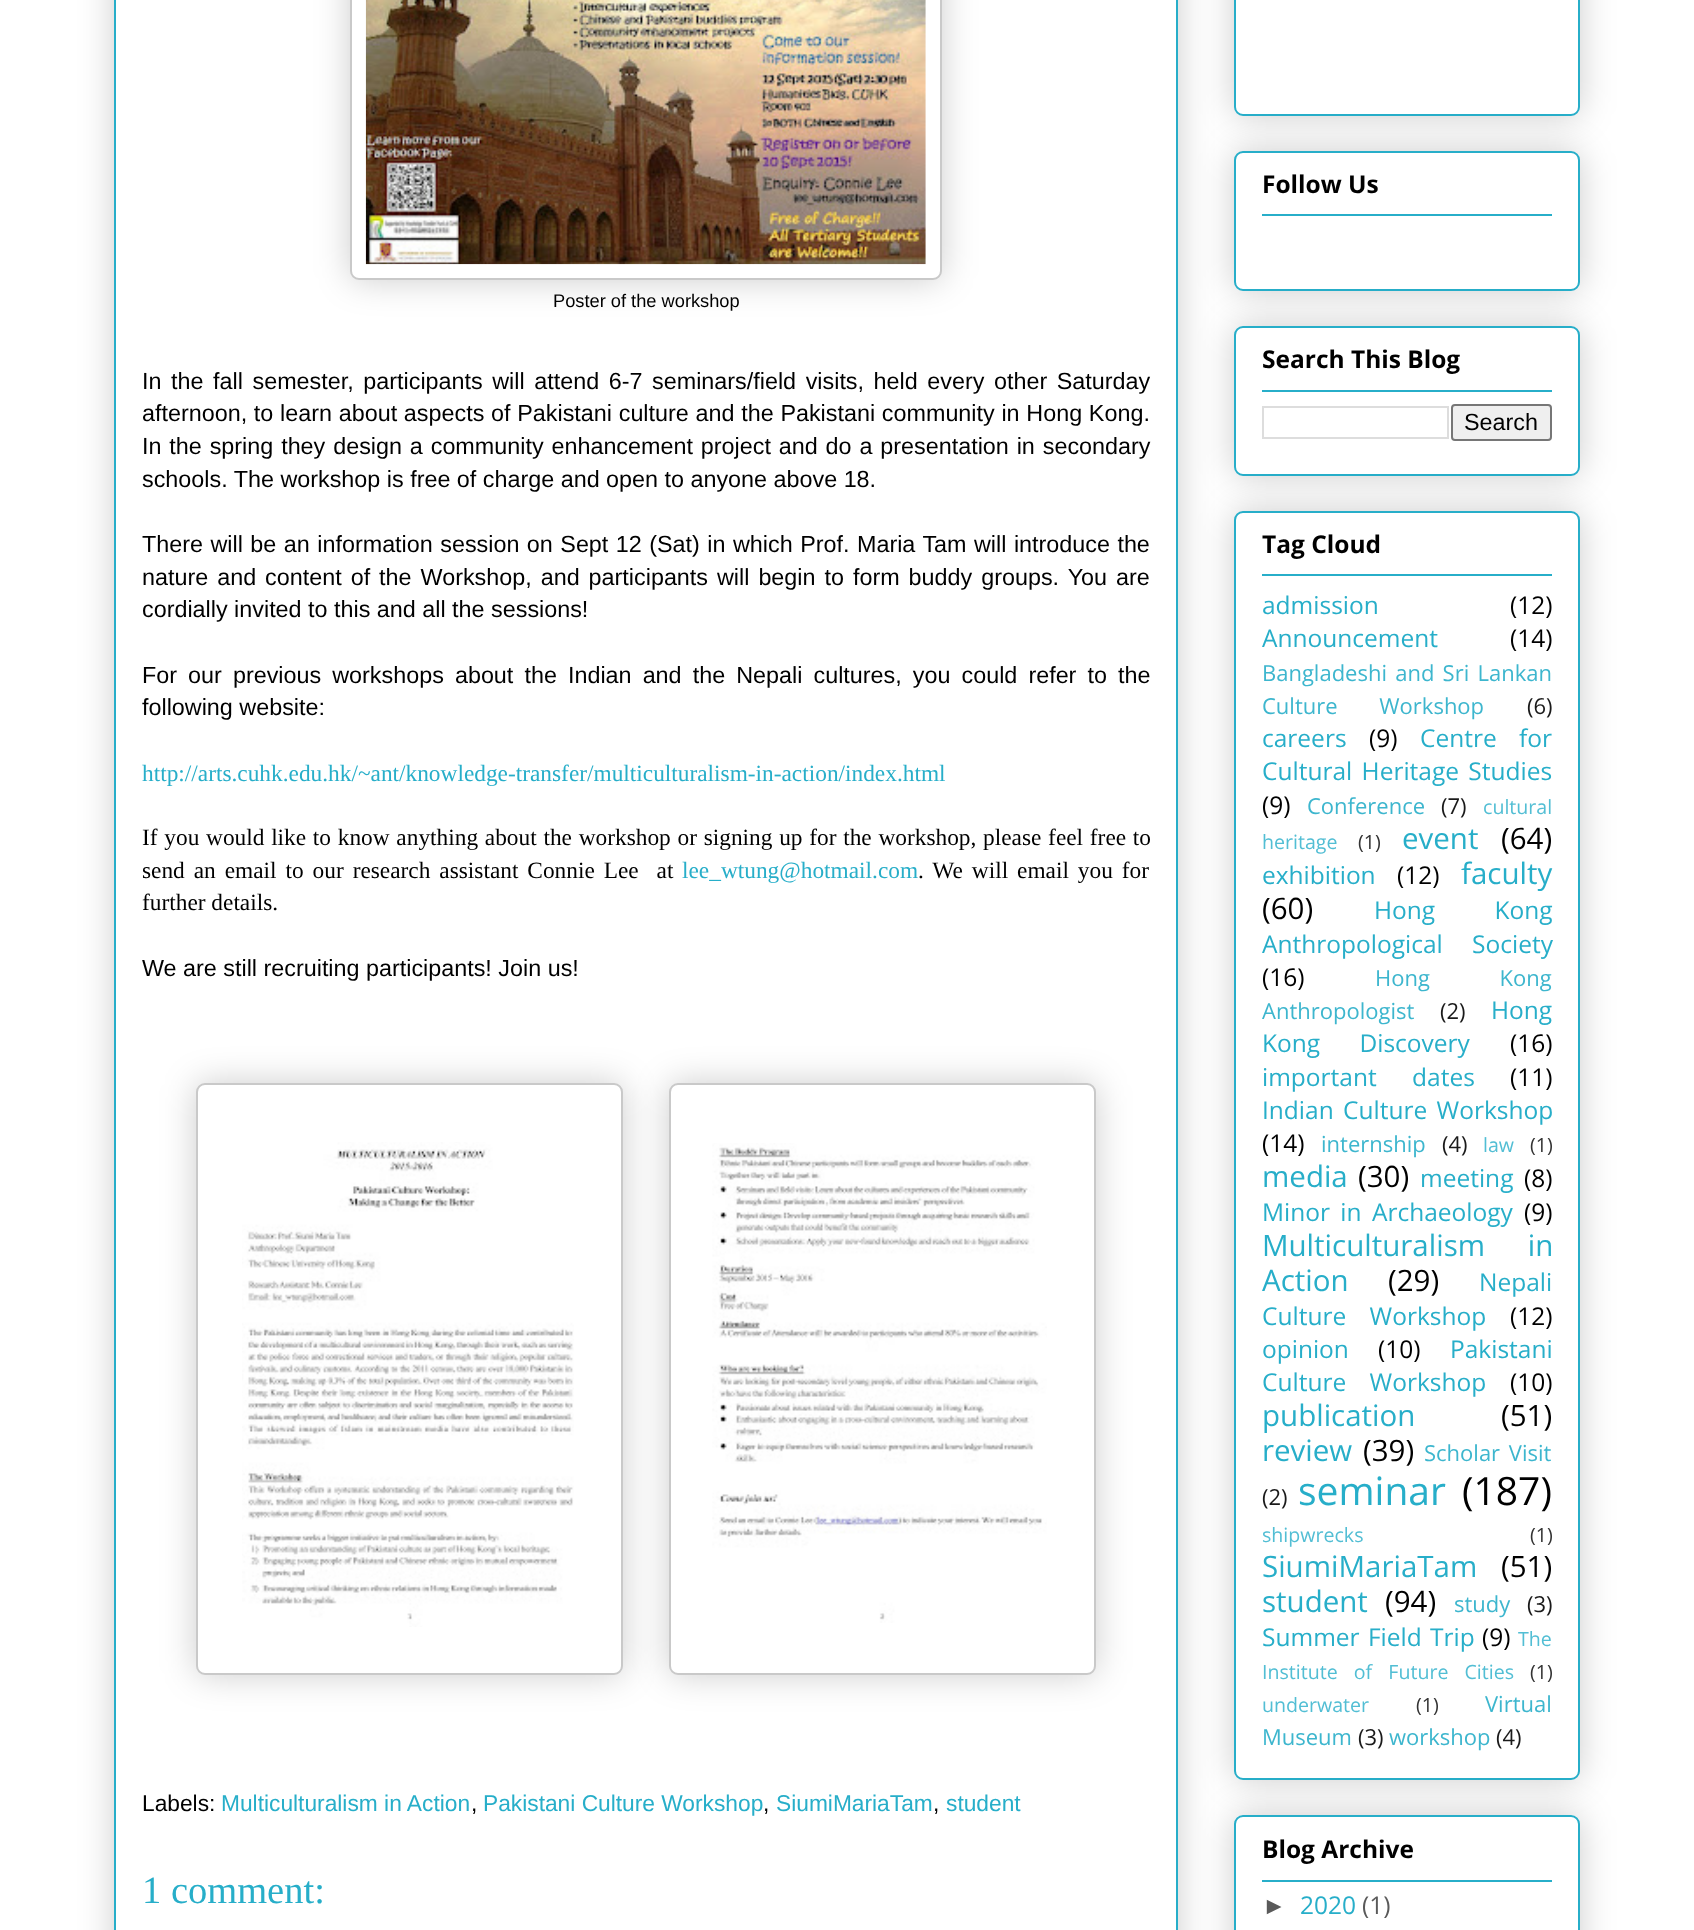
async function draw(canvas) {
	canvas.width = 1694;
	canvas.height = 1930;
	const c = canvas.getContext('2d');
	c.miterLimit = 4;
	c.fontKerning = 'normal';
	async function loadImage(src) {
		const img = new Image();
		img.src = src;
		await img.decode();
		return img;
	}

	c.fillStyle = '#fff';
	c.fillRect(0, 0, 1694, 1930);
	c.fillStyle = '#00000033';
	c.filter = 'blur(17.5px)';
	c.beginPath();
	c.roundRect(114, -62, 1064, 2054, 9);
	c.fill();
	c.filter = 'none';
	c.fillStyle = '#fff';
	c.beginPath();
	c.rect(115, -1, 1062, 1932);
	c.fill();
	c.strokeStyle = '#27aec9';
	c.lineWidth = 2;
	c.stroke();
	c.fillStyle = '#00000033';
	c.filter = 'blur(17.5px)';
	c.beginPath();
	c.roundRect(350, -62, 592, 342, 9);
	c.fill();
	c.filter = 'none';
	c.fillStyle = '#fff';
	c.beginPath();
	c.roundRect(351, -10, 590, 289, 8);
	c.fill();
	c.strokeStyle = '#c9c9c9';
	c.stroke();
	c.drawImage(await loadImage('img1.png'), 365, 0, 561, 265);
	c.font = '18.25px Liberation Sans';
	c.fillStyle = '#000';
	c.fillText('Poster of the workshop', 553, 307);
	c.wordSpacing = '3.1px';
	c.font = '23.35px Liberation Sans';
	c.fillText('In the fall semester, participants will attend 6-7 seminars/field visits, held every other Saturday', 142, 389);
	c.wordSpacing = '0.25px';
	c.fillText('afternoon, to learn about aspects of Pakistani culture and the Pakistani community in Hong Kong.', 142, 421);
	c.wordSpacing = '1.4px';
	c.fillText('In the spring they design a community enhancement project and do a presentation in secondary', 142, 454);
	c.wordSpacing = '0px';
	c.fillText('schools. The workshop is free of charge and open to anyone above 18.', 142, 487);
	c.wordSpacing = '1px';
	c.fillText('There will be an information session on Sept 12 (Sat) in which Prof. Maria Tam will introduce the', 142, 552);
	c.wordSpacing = '2.5px';
	c.fillText('nature and content of the Workshop, and participants will begin to form buddy groups. You are', 142, 585);
	c.wordSpacing = '0px';
	c.fillText('cordially invited to this and all the sessions!', 142, 617);
	c.wordSpacing = '4.6px';
	c.fillText('For our previous workshops about the Indian and the Nepali cultures, you could refer to the', 142, 683);
	c.wordSpacing = '0px';
	c.fillText('following website:', 142, 715);
	c.font = '23.35px Liberation Serif';
	c.fillStyle = '#27aec9';
	c.fillText('http://arts.cuhk.edu.hk/~ant/knowledge-transfer/multiculturalism-in-action/index.html', 142, 781);
	c.wordSpacing = '0.9px';
	c.fillStyle = '#000';
	c.fillText('If you would like to know anything about the workshop or signing up for the workshop, please feel free to', 142, 845);
	c.wordSpacing = '3.1px';
	c.fillText('send an email to our research assistant Connie Lee  at', 142, 878);
	c.wordSpacing = '0px';
	c.fillStyle = '#27aec9';
	c.fillText('lee_wtung@hotmail.com', 682, 878);
	c.wordSpacing = '3.1px';
	c.fillStyle = '#000';
	c.fillText('. We will email you for', 918, 878);
	c.wordSpacing = '0px';
	c.fillText('further details.', 142, 910);
	c.font = '23.35px Liberation Sans';
	c.fillText('We are still recruiting participants! Join us!', 142, 976);
	c.fillStyle = '#00000033';
	c.filter = 'blur(17.5px)';
	c.beginPath();
	c.roundRect(196, 1083, 427, 592, 9);
	c.fill();
	c.filter = 'none';
	c.fillStyle = '#fff';
	c.beginPath();
	c.roundRect(197, 1084, 425, 590, 8);
	c.fill();
	c.stroke();
	c.fillStyle = '#00000033';
	c.filter = 'blur(17.5px)';
	c.beginPath();
	c.roundRect(669, 1083, 427, 592, 9);
	c.fill();
	c.filter = 'none';
	c.fillStyle = '#fff';
	c.beginPath();
	c.roundRect(670, 1084, 425, 590, 8);
	c.fill();
	c.stroke();
	c.drawImage(await loadImage('img2.png'), 242, 1142, 332, 485);
	c.drawImage(await loadImage('img3.png'), 712, 1143, 335, 480);
	c.font = '22.75px Liberation Sans';
	c.fillStyle = '#000';
	c.fillText('Labels:', 142, 1811);
	c.fillStyle = '#27aec9';
	c.fillText('Multiculturalism in Action', 221, 1811);
	c.fillStyle = '#000';
	c.fillText(',', 471, 1811);
	c.fillStyle = '#27aec9';
	c.fillText('Pakistani Culture Workshop', 483, 1811);
	c.fillStyle = '#000';
	c.fillText(',', 763, 1811);
	c.fillStyle = '#27aec9';
	c.fillText('SiumiMariaTam', 776, 1811);
	c.fillStyle = '#000';
	c.fillText(',', 933, 1811);
	c.fillStyle = '#27aec9';
	c.fillText('student', 946, 1811);
	c.font = '38.5px Liberation Serif';
	c.fillText('1 comment:', 142, 1903);
	c.fillStyle = '#00000033';
	c.filter = 'blur(17.5px)';
	c.beginPath();
	c.roundRect(1234, -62, 346, 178, 9);
	c.fill();
	c.filter = 'none';
	c.fillStyle = '#fff';
	c.beginPath();
	c.roundRect(1235, -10, 344, 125, 8);
	c.fill();
	c.strokeStyle = '#27aec9';
	c.stroke();
	c.fillStyle = '#00000033';
	c.filter = 'blur(17.5px)';
	c.beginPath();
	c.roundRect(1234, 151, 346, 140, 9);
	c.fill();
	c.filter = 'none';
	c.fillStyle = '#fff';
	c.beginPath();
	c.roundRect(1235, 152, 344, 138, 8);
	c.fill();
	c.stroke();
	c.font = 'bold 24.5px Open Sans';
	c.fillStyle = '#000';
	c.fillText('Follow Us', 1262, 193);
	c.fillStyle = '#27aec9';
	c.fillRect(1262, 214, 290, 2);
	c.fillStyle = '#00000033';
	c.filter = 'blur(17.5px)';
	c.beginPath();
	c.roundRect(1234, 326, 346, 150, 9);
	c.fill();
	c.filter = 'none';
	c.fillStyle = '#fff';
	c.beginPath();
	c.roundRect(1235, 327, 344, 148, 8);
	c.fill();
	c.stroke();
	c.fillStyle = '#000';
	c.fillText('Search This Blog', 1262, 368);
	c.fillStyle = '#27aec9';
	c.fillRect(1262, 390, 290, 2);
	c.strokeStyle = '#ddd';
	c.strokeRect(1263, 407, 185, 31);
	c.fillStyle = '#efefef';
	c.beginPath();
	c.roundRect(1452, 405, 99, 35, 3);
	c.fill();
	c.strokeStyle = '#767676';
	c.stroke();
	c.font = '23.35px Liberation Sans';
	c.fillStyle = '#000';
	c.fillText('Search', 1464, 430);
	c.fillStyle = '#00000033';
	c.filter = 'blur(17.5px)';
	c.beginPath();
	c.roundRect(1234, 511, 346, 1269, 9);
	c.fill();
	c.filter = 'none';
	c.fillStyle = '#fff';
	c.beginPath();
	c.roundRect(1235, 512, 344, 1267, 8);
	c.fill();
	c.strokeStyle = '#27aec9';
	c.stroke();
	c.font = 'bold 24.5px Open Sans';
	c.fillStyle = '#000';
	c.fillText('Tag Cloud', 1262, 553);
	c.fillStyle = '#27aec9';
	c.fillRect(1262, 574, 290, 2);
	c.font = '24.5px Open Sans';
	c.fillText('admission', 1262, 614);
	c.fillStyle = '#000';
	c.fillText('(12)', 1510, 614);
	c.fillStyle = '#27aec9';
	c.fillText('Announcement', 1262, 647);
	c.fillStyle = '#000';
	c.fillText('(14)', 1510, 647);
	c.wordSpacing = '2.5px';
	c.font = '22px Open Sans';
	c.fillStyle = '#3db6ce';
	c.fillText('Bangladeshi and Sri Lankan', 1262, 681);
	c.wordSpacing = '36px';
	c.fillText('Culture Workshop', 1262, 714);
	c.wordSpacing = '0px';
	c.fillStyle = '#1a1a1a';
	c.fillText('(6)', 1527, 714);
	c.font = '24.5px Open Sans';
	c.fillStyle = '#27aec9';
	c.fillText('careers', 1262, 747);
	c.fillStyle = '#000';
	c.fillText('(9)', 1369, 747);
	c.wordSpacing = '16px';
	c.fillStyle = '#27aec9';
	c.fillText('Centre for', 1420, 747);
	c.wordSpacing = '3px';
	c.fillText('Cultural Heritage Studies', 1262, 780);
	c.wordSpacing = '0px';
	c.fillStyle = '#000';
	c.fillText('(9)', 1262, 814);
	c.font = '22px Open Sans';
	c.fillStyle = '#3db6ce';
	c.fillText('Conference', 1307, 814);
	c.fillStyle = '#1a1a1a';
	c.fillText('(7)', 1441, 814);
	c.font = '19.6px Open Sans';
	c.fillStyle = '#52bed4';
	c.fillText('cultural', 1483, 814);
	c.fillText('heritage', 1262, 849);
	c.fillStyle = '#333';
	c.fillText('(1)', 1358, 849);
	c.font = '29.5px Open Sans';
	c.fillStyle = '#27aec9';
	c.fillText('event', 1402, 849);
	c.fillStyle = '#000';
	c.fillText('(64)', 1501, 849);
	c.font = '24.5px Open Sans';
	c.fillStyle = '#27aec9';
	c.fillText('exhibition', 1262, 884);
	c.fillStyle = '#000';
	c.fillText('(12)', 1397, 884);
	c.font = '29.5px Open Sans';
	c.fillStyle = '#27aec9';
	c.fillText('faculty', 1461, 884);
	c.fillStyle = '#000';
	c.fillText('(60)', 1262, 919);
	c.wordSpacing = '53px';
	c.font = '24.5px Open Sans';
	c.fillStyle = '#27aec9';
	c.fillText('Hong Kong', 1374, 919);
	c.wordSpacing = '23px';
	c.fillText('Anthropological Society', 1262, 953);
	c.wordSpacing = '0px';
	c.fillStyle = '#000';
	c.fillText('(16)', 1262, 986);
	c.wordSpacing = '64px';
	c.font = '22px Open Sans';
	c.fillStyle = '#3db6ce';
	c.fillText('Hong Kong', 1375, 986);
	c.wordSpacing = '0px';
	c.fillText('Anthropologist', 1262, 1019);
	c.fillStyle = '#1a1a1a';
	c.fillText('(2)', 1440, 1019);
	c.font = '24.5px Open Sans';
	c.fillStyle = '#27aec9';
	c.fillText('Hong', 1491, 1019);
	c.wordSpacing = '33px';
	c.fillText('Kong Discovery', 1262, 1052);
	c.wordSpacing = '0px';
	c.fillStyle = '#000';
	c.fillText('(16)', 1510, 1052);
	c.wordSpacing = '29px';
	c.fillStyle = '#27aec9';
	c.fillText('important dates', 1262, 1086);
	c.wordSpacing = '0px';
	c.fillStyle = '#000';
	c.fillText('(11)', 1510, 1086);
	c.wordSpacing = '3px';
	c.fillStyle = '#27aec9';
	c.fillText('Indian Culture Workshop', 1262, 1119);
	c.wordSpacing = '0px';
	c.fillStyle = '#000';
	c.fillText('(14)', 1262, 1152);
	c.font = '22px Open Sans';
	c.fillStyle = '#3db6ce';
	c.fillText('internship', 1321, 1152);
	c.fillStyle = '#1a1a1a';
	c.fillText('(4)', 1442, 1152);
	c.font = '19.6px Open Sans';
	c.fillStyle = '#52bed4';
	c.fillText('law', 1483, 1152);
	c.fillStyle = '#333';
	c.fillText('(1)', 1530, 1152);
	c.font = '29.5px Open Sans';
	c.fillStyle = '#27aec9';
	c.fillText('media', 1262, 1187);
	c.fillStyle = '#000';
	c.fillText('(30)', 1358, 1187);
	c.font = '24.5px Open Sans';
	c.fillStyle = '#27aec9';
	c.fillText('meeting', 1420, 1187);
	c.fillStyle = '#000';
	c.fillText('(8)', 1524, 1187);
	c.wordSpacing = '4px';
	c.fillStyle = '#27aec9';
	c.fillText('Minor in Archaeology', 1262, 1221);
	c.wordSpacing = '0px';
	c.fillStyle = '#000';
	c.fillText('(9)', 1524, 1221);
	c.wordSpacing = '35px';
	c.font = '29.5px Open Sans';
	c.fillStyle = '#27aec9';
	c.fillText('Multiculturalism in', 1262, 1256);
	c.wordSpacing = '0px';
	c.fillText('Action', 1262, 1291);
	c.fillStyle = '#000';
	c.fillText('(29)', 1388, 1291);
	c.font = '24.5px Open Sans';
	c.fillStyle = '#27aec9';
	c.fillText('Nepali', 1479, 1291);
	c.wordSpacing = '17px';
	c.fillText('Culture Workshop', 1262, 1325);
	c.wordSpacing = '0px';
	c.fillStyle = '#000';
	c.fillText('(12)', 1510, 1325);
	c.fillStyle = '#27aec9';
	c.fillText('opinion', 1262, 1358);
	c.fillStyle = '#000';
	c.fillText('(10)', 1378, 1358);
	c.fillStyle = '#27aec9';
	c.fillText('Pakistani', 1450, 1358);
	c.wordSpacing = '17px';
	c.fillText('Culture Workshop', 1262, 1391);
	c.wordSpacing = '0px';
	c.fillStyle = '#000';
	c.fillText('(10)', 1510, 1391);
	c.font = '29.5px Open Sans';
	c.fillStyle = '#27aec9';
	c.fillText('publication', 1262, 1426);
	c.fillStyle = '#000';
	c.fillText('(51)', 1501, 1426);
	c.fillStyle = '#27aec9';
	c.fillText('review', 1262, 1461);
	c.fillStyle = '#000';
	c.fillText('(39)', 1363, 1461);
	c.wordSpacing = '3px';
	c.font = '22px Open Sans';
	c.fillStyle = '#3db6ce';
	c.fillText('Scholar Visit', 1424, 1461);
	c.wordSpacing = '0px';
	c.fillStyle = '#1a1a1a';
	c.fillText('(2)', 1262, 1505);
	c.font = '39px Open Sans';
	c.fillStyle = '#27aec9';
	c.fillText('seminar', 1298, 1505);
	c.fillStyle = '#000';
	c.fillText('(187)', 1462, 1505);
	c.font = '19.6px Open Sans';
	c.fillStyle = '#52bed4';
	c.fillText('shipwrecks', 1262, 1542);
	c.fillStyle = '#333';
	c.fillText('(1)', 1530, 1542);
	c.font = '29.5px Open Sans';
	c.fillStyle = '#27aec9';
	c.fillText('SiumiMariaTam', 1262, 1577);
	c.fillStyle = '#000';
	c.fillText('(51)', 1501, 1577);
	c.fillStyle = '#27aec9';
	c.fillText('student', 1262, 1612);
	c.fillStyle = '#000';
	c.fillText('(94)', 1385, 1612);
	c.font = '22px Open Sans';
	c.fillStyle = '#3db6ce';
	c.fillText('study', 1454, 1612);
	c.fillStyle = '#1a1a1a';
	c.fillText('(3)', 1527, 1612);
	c.wordSpacing = '2px';
	c.font = '24.5px Open Sans';
	c.fillStyle = '#27aec9';
	c.fillText('Summer Field Trip', 1262, 1646);
	c.wordSpacing = '0px';
	c.fillStyle = '#000';
	c.fillText('(9)', 1482, 1646);
	c.font = '19.6px Open Sans';
	c.fillStyle = '#52bed4';
	c.fillText('The', 1518, 1646);
	c.wordSpacing = '11px';
	c.fillText('Institute of Future Cities', 1262, 1679);
	c.wordSpacing = '0px';
	c.fillStyle = '#333';
	c.fillText('(1)', 1530, 1679);
	c.fillStyle = '#52bed4';
	c.fillText('underwater', 1262, 1712);
	c.fillStyle = '#333';
	c.fillText('(1)', 1416, 1712);
	c.font = '22px Open Sans';
	c.fillStyle = '#3db6ce';
	c.fillText('Virtual', 1485, 1712);
	c.fillText('Museum', 1262, 1745);
	c.fillStyle = '#1a1a1a';
	c.fillText('(3)', 1358, 1745);
	c.fillStyle = '#3db6ce';
	c.fillText('workshop', 1389, 1745);
	c.fillStyle = '#1a1a1a';
	c.fillText('(4)', 1496, 1745);
	c.save();
	c.beginPath();
	c.moveTo(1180, 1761);
	c.lineTo(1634, 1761);
	c.lineTo(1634, 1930);
	c.lineTo(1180, 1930);
	c.closePath();
	c.moveTo(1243, 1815);
	c.lineTo(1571, 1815);
	c.bezierCurveTo(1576, 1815, 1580, 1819, 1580, 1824);
	c.lineTo(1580, 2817);
	c.bezierCurveTo(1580, 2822, 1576, 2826, 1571, 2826);
	c.lineTo(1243, 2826);
	c.bezierCurveTo(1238, 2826, 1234, 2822, 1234, 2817);
	c.lineTo(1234, 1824);
	c.bezierCurveTo(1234, 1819, 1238, 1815, 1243, 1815);
	c.closePath();
	c.clip('evenodd');
	c.fillStyle = '#00000033';
	c.filter = 'blur(17.5px)';
	c.beginPath();
	c.roundRect(1234, 1815, 346, 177, 9);
	c.fill();
	c.filter = 'none';
	c.restore();
	c.beginPath();
	c.roundRect(1235, 1816, 344, 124, 8);
	c.stroke();
	c.font = 'bold 24.5px Open Sans';
	c.fillStyle = '#000';
	c.fillText('Blog Archive', 1262, 1858);
	c.fillStyle = '#27aec9';
	c.fillRect(1262, 1880, 290, 2);
	c.font = '24.5px Liberation Sans';
	c.fillStyle = '#5a5a5a';
	c.fillText('►', 1262, 1914);
	c.font = '24.5px Open Sans';
	c.fillStyle = '#27aec9';
	c.fillText('2020', 1300, 1914);
	c.fillStyle = '#5a5a5a';
	c.fillText('(1)', 1362, 1914);
}

draw(document.querySelector('canvas'));
